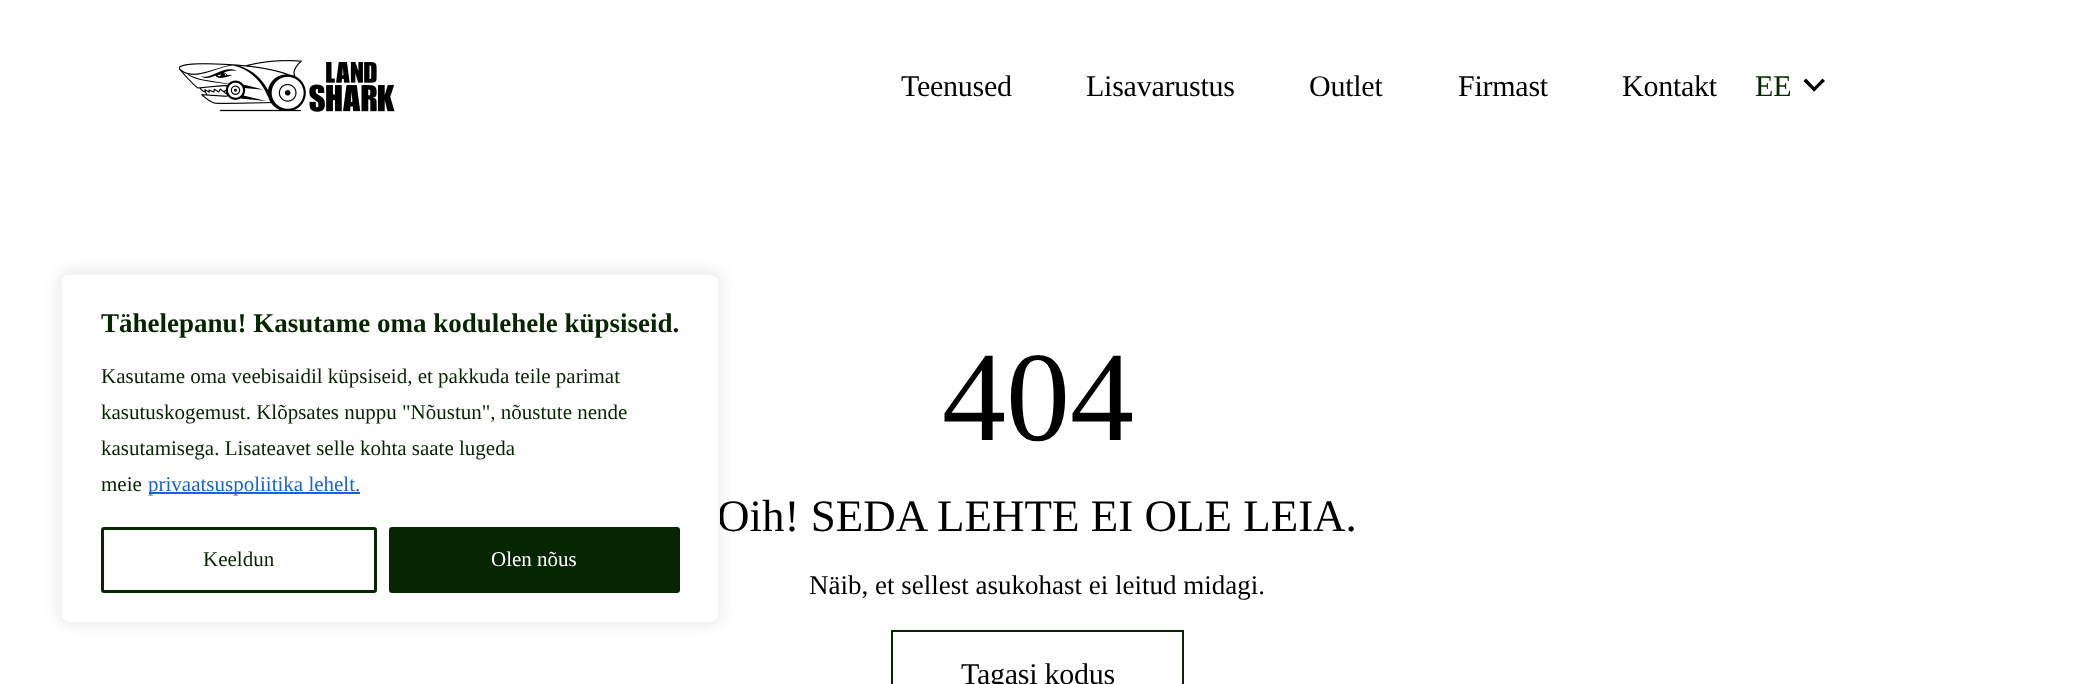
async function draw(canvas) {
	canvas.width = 2074;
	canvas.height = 684;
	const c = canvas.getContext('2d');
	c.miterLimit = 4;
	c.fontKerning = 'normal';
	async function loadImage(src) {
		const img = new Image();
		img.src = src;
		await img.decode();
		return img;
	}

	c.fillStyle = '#fff';
	c.fillRect(0, 0, 2074, 684);
	c.fillStyle = '#acabab4d';
	c.filter = 'blur(7.5px)';
	c.beginPath();
	c.roundRect(60, 272, 660, 351, 9);
	c.fill();
	c.filter = 'none';
	c.font = '45px Liberation Serif';
	c.fillStyle = '#000';
	c.fillText('Oih! SEDA LEHTE EI OLE LEIA.', 717, 531);
	c.fillStyle = '#fff';
	c.beginPath();
	c.roundRect(61, 274, 658, 349, 8);
	c.fill();
	c.strokeStyle = '#f4f4f4';
	c.lineWidth = 2;
	c.stroke();
	c.font = 'bold 27px Liberation Serif';
	c.fillStyle = '#062601';
	c.fillText('Tähelepanu! Kasutame oma kodulehele küpsiseid.', 101, 332);
	c.font = '21px Liberation Serif';
	for (const [text, x, y] of [
		['Kasutame oma veebisaidil küpsiseid, et pakkuda teile parimat', 101, 383],
		['kasutuskogemust. Klõpsates nuppu "Nõustun", nõustute nende', 101, 419],
		['kasutamisega. Lisateavet selle kohta saate lugeda', 101, 455],
		['meie', 101, 491],
	]) {
		c.fillText(text, x, y);
	}
	c.fillStyle = '#1863dc';
	c.fillRect(149, 492, 211, 2);
	c.fillText('privaatsuspoliitika lehelt.', 148, 491);
	c.beginPath();
	c.roundRect(102.5, 528.5, 273, 63, 1.5);
	c.strokeStyle = '#062601';
	c.lineWidth = 3;
	c.stroke();
	c.fillStyle = '#062601';
	c.fillText('Keeldun', 203, 566);
	c.beginPath();
	c.roundRect(390.5, 528.5, 288, 63, 1.5);
	c.fill();
	c.stroke();
	c.fillStyle = '#fff';
	c.fillText('Olen nõus', 491, 566);
	c.drawImage(await loadImage('img1.png'), 179, 60, 216, 52);
	c.letterSpacing = '-0.25px';
	c.font = '30px Liberation Serif';
	c.fillStyle = '#000';
	for (const [text, x, y] of [
		['Teenused', 901, 96],
		['Lisavarustus', 1086, 96],
		['Outlet', 1309, 96],
		['Firmast', 1458, 96],
		['Kontakt', 1622, 96],
	]) {
		c.fillText(text, x, y);
	}
	c.letterSpacing = '0px';
	c.fillStyle = '#062601';
	c.fillText('EE', 1755, 96);
	c.fillStyle = '#000';
	c.beginPath();
	c.moveTo(1814, 91.5);
	c.lineTo(1803.5, 81);
	c.lineTo(1806, 78.5);
	c.lineTo(1816.5, 89.5);
	c.closePath();
	c.fill();
	c.beginPath();
	c.moveTo(1814, 91.5);
	c.lineTo(1812, 89.5);
	c.lineTo(1822.5, 78.5);
	c.lineTo(1825, 81);
	c.closePath();
	c.fill();
	c.font = '128px Liberation Serif';
	c.fillText('404', 942, 440);
	c.font = '27px Liberation Serif';
	c.fillText('Näib, et sellest asukohast ei leitud midagi.', 809, 594);
	c.lineWidth = 2;
	c.strokeRect(892, 631, 291, 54);
	c.letterSpacing = '-0.25px';
	c.font = '30px Liberation Serif';
	c.fillText('Tagasi kodus', 961, 684);
}

draw(document.querySelector('canvas'));
